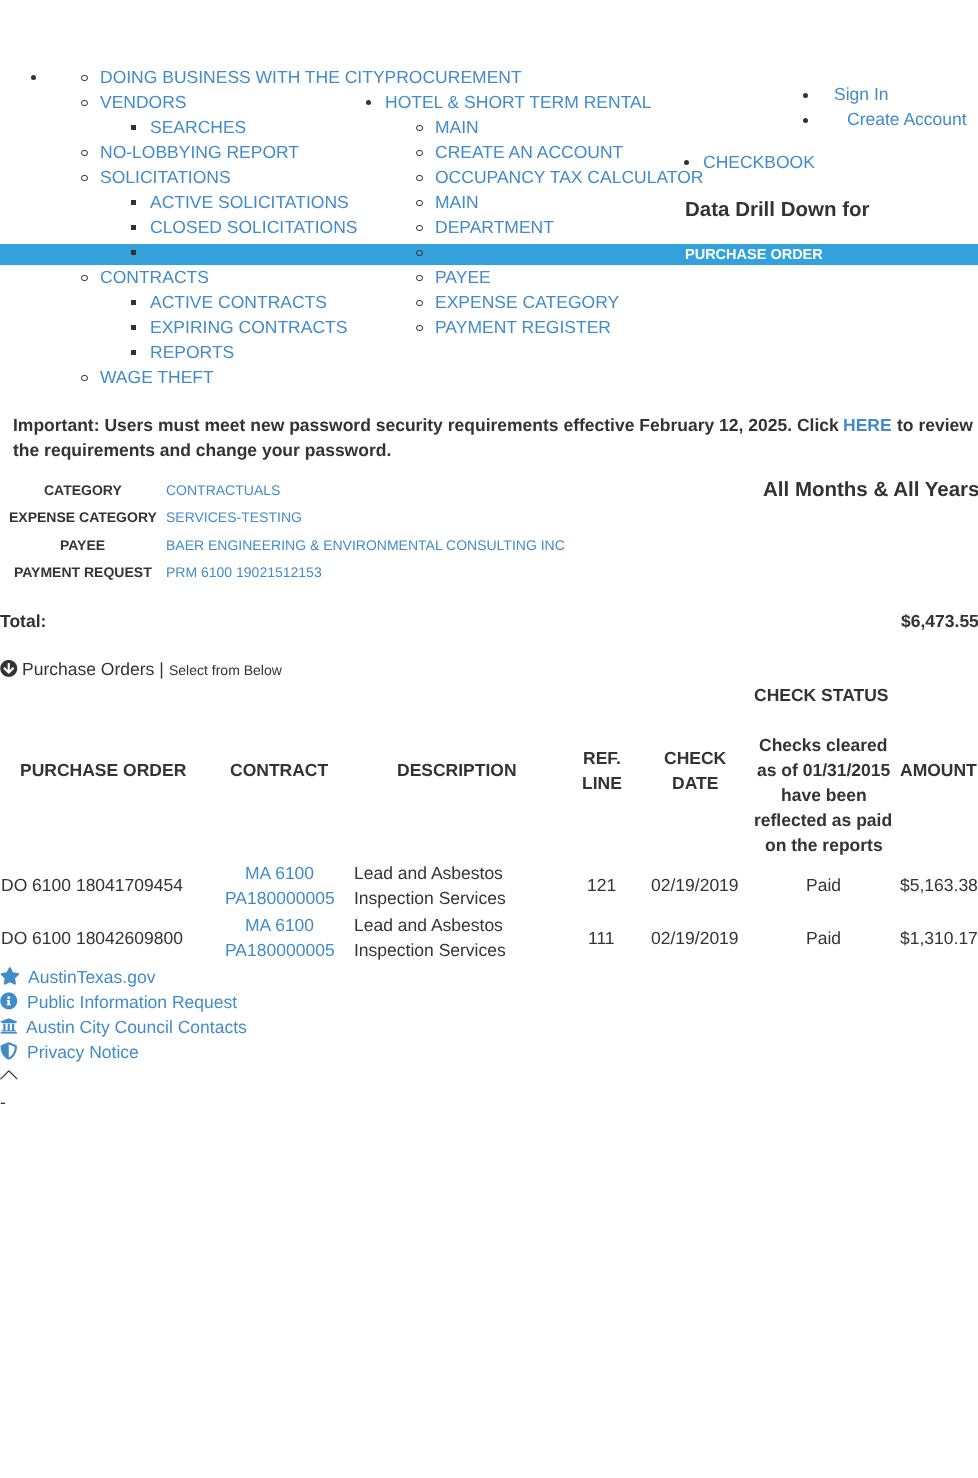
async function draw(canvas) {
	canvas.width = 978;
	canvas.height = 1478;
	const c = canvas.getContext('2d');
	c.miterLimit = 4;
	c.fontKerning = 'normal';
	async function loadImage(src) {
		const img = new Image();
		img.src = src;
		await img.decode();
		return img;
	}

	c.fillStyle = '#fff';
	c.fillRect(0, 0, 978, 1478);
	c.fillStyle = '#333';
	c.beginPath();
	c.arc(33.5, 77.5, 2.5, 0, 2 * Math.PI);
	c.fill();
	c.beginPath();
	c.roundRect(81.5, 75.5, 6, 5, 2.5);
	c.strokeStyle = '#333';
	c.stroke();
	c.font = '17.5px Liberation Sans';
	c.fillStyle = '#428bca';
	c.fillText('DOING BUSINESS WITH THE CITYPROCUREMENT', 100, 83);
	c.beginPath();
	c.roundRect(81.5, 100.5, 6, 5, 2.5);
	c.stroke();
	c.fillText('VENDORS', 100, 108);
	c.fillStyle = '#333';
	c.fillRect(131, 125, 5, 5);
	c.fillStyle = '#428bca';
	c.fillText('SEARCHES', 150, 133);
	c.beginPath();
	c.roundRect(81.5, 150.5, 6, 5, 2.5);
	c.stroke();
	c.fillText('NO-LOBBYING REPORT', 100, 158);
	c.beginPath();
	c.roundRect(81.5, 175.5, 6, 5, 2.5);
	c.stroke();
	c.fillText('SOLICITATIONS', 100, 183);
	c.fillStyle = '#333';
	c.fillRect(131, 200, 5, 5);
	c.fillStyle = '#428bca';
	c.fillText('ACTIVE SOLICITATIONS', 150, 208);
	c.fillStyle = '#333';
	c.fillRect(131, 225, 5, 5);
	c.fillStyle = '#428bca';
	c.fillText('CLOSED SOLICITATIONS', 150, 233);
	c.fillStyle = '#33a2dc';
	c.fillRect(0, 244, 978, 21);
	c.fillStyle = '#333';
	c.fillRect(131, 250, 5, 5);
	c.beginPath();
	c.roundRect(81.5, 275.5, 6, 5, 2.5);
	c.stroke();
	c.fillStyle = '#428bca';
	c.fillText('CONTRACTS', 100, 283);
	c.fillStyle = '#333';
	c.fillRect(131, 300, 5, 5);
	c.fillStyle = '#428bca';
	c.fillText('ACTIVE CONTRACTS', 150, 308);
	c.fillStyle = '#333';
	c.fillRect(131, 325, 5, 5);
	c.fillStyle = '#428bca';
	c.fillText('EXPIRING CONTRACTS', 150, 333);
	c.fillStyle = '#333';
	c.fillRect(131, 350, 5, 5);
	c.fillStyle = '#428bca';
	c.fillText('REPORTS', 150, 358);
	c.beginPath();
	c.roundRect(81.5, 375.5, 6, 5, 2.5);
	c.stroke();
	c.fillText('WAGE THEFT', 100, 383);
	c.fillStyle = '#333';
	c.beginPath();
	c.arc(368.5, 102.5, 2.5, 0, 2 * Math.PI);
	c.fill();
	c.fillStyle = '#428bca';
	c.fillText('HOTEL & SHORT TERM RENTAL', 385, 108);
	c.beginPath();
	c.roundRect(416.5, 125.5, 6, 5, 2.5);
	c.stroke();
	c.fillText('MAIN', 435, 133);
	c.beginPath();
	c.roundRect(416.5, 150.5, 6, 5, 2.5);
	c.stroke();
	c.fillText('CREATE AN ACCOUNT', 435, 158);
	c.beginPath();
	c.roundRect(416.5, 175.5, 6, 5, 2.5);
	c.stroke();
	c.fillText('OCCUPANCY TAX CALCULATOR', 435, 183);
	c.fillStyle = '#333';
	c.beginPath();
	c.arc(686.5, 162.5, 2.5, 0, 2 * Math.PI);
	c.fill();
	c.fillStyle = '#428bca';
	c.fillText('CHECKBOOK', 703, 168);
	c.beginPath();
	c.roundRect(416.5, 200.5, 6, 5, 2.5);
	c.stroke();
	c.fillText('MAIN', 435, 208);
	c.beginPath();
	c.roundRect(416.5, 225.5, 6, 5, 2.5);
	c.stroke();
	c.fillText('DEPARTMENT', 435, 233);
	c.beginPath();
	c.roundRect(416.5, 250.5, 6, 5, 2.5);
	c.stroke();
	c.beginPath();
	c.roundRect(416.5, 275.5, 6, 5, 2.5);
	c.stroke();
	c.fillText('PAYEE', 435, 283);
	c.beginPath();
	c.roundRect(416.5, 300.5, 6, 5, 2.5);
	c.stroke();
	c.fillText('EXPENSE CATEGORY', 435, 308);
	c.beginPath();
	c.roundRect(416.5, 325.5, 6, 5, 2.5);
	c.stroke();
	c.fillText('PAYMENT REGISTER', 435, 333);
	c.fillStyle = '#333';
	c.beginPath();
	c.arc(805.5, 95.5, 2.5, 0, 2 * Math.PI);
	c.fill();
	c.fillStyle = '#428bca';
	c.fillText('Sign In', 834, 100);
	c.fillStyle = '#333';
	c.beginPath();
	c.arc(805.5, 120.5, 2.5, 0, 2 * Math.PI);
	c.fill();
	c.fillStyle = '#428bca';
	c.fillText('Create Account', 847, 125);
	c.font = 'bold 20.5px Liberation Sans';
	c.fillStyle = '#333';
	c.fillText('Data Drill Down for', 685, 216);
	c.fillText('All Months & All Years', 763, 496);
	c.font = 'bold 14.5px Liberation Sans';
	c.fillStyle = '#fff';
	c.fillText('PURCHASE ORDER', 685, 259);
	c.font = 'bold 14px Liberation Sans';
	c.fillStyle = '#333';
	c.fillText('CATEGORY', 44, 495);
	c.font = '14px Liberation Sans';
	c.fillStyle = '#428bca';
	c.fillText('CONTRACTUALS', 166, 495);
	c.font = 'bold 14px Liberation Sans';
	c.fillStyle = '#333';
	c.fillText('EXPENSE CATEGORY', 9, 522);
	c.font = '14px Liberation Sans';
	c.fillStyle = '#428bca';
	c.fillText('SERVICES-TESTING', 166, 522);
	c.font = 'bold 14px Liberation Sans';
	c.fillStyle = '#333';
	c.fillText('PAYEE', 60, 550);
	c.font = '14px Liberation Sans';
	c.fillStyle = '#428bca';
	c.fillText('BAER ENGINEERING & ENVIRONMENTAL CONSULTING INC', 166, 550);
	c.font = 'bold 14px Liberation Sans';
	c.fillStyle = '#333';
	c.fillText('PAYMENT REQUEST', 14, 577);
	c.font = '14px Liberation Sans';
	c.fillStyle = '#428bca';
	c.fillText('PRM 6100 19021512153', 166, 577);
	c.font = 'bold 17.5px Liberation Sans';
	c.fillStyle = '#333';
	c.fillText('Total:', 0, 627);
	c.fillText('$6,473.55', 901, 627);
	c.drawImage(await loadImage('img1.png'), 0, 660, 18, 17);
	c.font = '17.5px Liberation Sans';
	c.fillText('Purchase Orders |', 22, 675);
	c.font = '14px Liberation Sans';
	c.fillText('Select from Below', 169, 675);
	c.font = 'bold 17.5px Liberation Sans';
	for (const [text, x, y] of [
		['PURCHASE ORDER', 20, 776],
		['CONTRACT', 230, 776],
		['DESCRIPTION', 397, 776],
		['REF.', 583, 764],
		['LINE', 582, 789],
		['CHECK', 664, 764],
		['DATE', 672, 789],
		['CHECK STATUS', 754, 701],
		['Checks cleared', 759, 751],
		['as of 01/31/2015', 757, 776],
		['have been', 781, 801],
		['reflected as paid', 754, 826],
		['on the reports', 765, 851],
		['AMOUNT', 900, 776],
	]) {
		c.fillText(text, x, y);
	}
	c.font = '17.5px Liberation Sans';
	c.fillText('DO 6100 18041709454', 1, 891);
	c.fillStyle = '#428bca';
	c.fillText('MA 6100', 245, 879);
	c.fillText('PA180000005', 225, 904);
	c.fillStyle = '#333';
	for (const [text, x, y] of [
		['Lead and Asbestos', 354, 879],
		['Inspection Services', 354, 904],
		['121', 587, 891],
		['02/19/2019', 651, 891],
		['Paid', 806, 891],
		['$5,163.38', 900, 891],
		['DO 6100 18042609800', 1, 944],
	]) {
		c.fillText(text, x, y);
	}
	c.fillStyle = '#428bca';
	c.fillText('MA 6100', 245, 931);
	c.fillText('PA180000005', 225, 956);
	c.fillStyle = '#333';
	for (const [text, x, y] of [
		['Lead and Asbestos', 354, 931],
		['Inspection Services', 354, 956],
		['111', 588, 944],
		['02/19/2019', 651, 944],
		['Paid', 806, 944],
		['$1,310.17', 900, 944],
	]) {
		c.fillText(text, x, y);
	}
	c.font = 'bold 17.5px Liberation Sans';
	c.fillText('Important: Users must meet new password security requirements effective February 12, 2025. Click', 13, 431);
	c.fillStyle = '#428bca';
	c.fillText('HERE', 843, 431);
	c.fillStyle = '#333';
	c.fillText('to review', 897, 431);
	c.fillText('the requirements and change your password.', 13, 456);
	c.drawImage(await loadImage('img2.png'), 0, 967, 19, 18);
	c.font = '17.5px Liberation Sans';
	c.fillStyle = '#428bca';
	c.fillText('AustinTexas.gov', 28, 983);
	c.drawImage(await loadImage('img3.png'), 0, 992, 18, 18);
	c.fillText('Public Information Request', 27, 1008);
	c.drawImage(await loadImage('img4.png'), 0, 1018, 17, 16);
	c.fillText('Austin City Council Contacts', 26, 1033);
	c.drawImage(await loadImage('img5.png'), 0, 1042, 17, 18);
	c.fillText('Privacy Notice', 27, 1058);
	c.drawImage(await loadImage('img6.png'), 0, 1070, 18, 10);
	c.fillStyle = '#333';
	c.fillText('-', 0, 1108);
}

draw(document.querySelector('canvas'));
